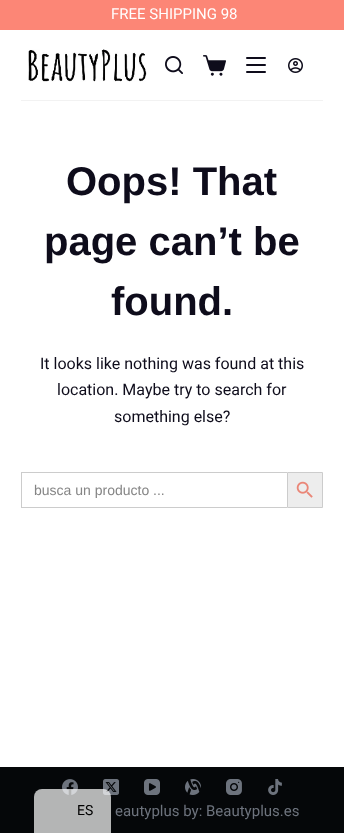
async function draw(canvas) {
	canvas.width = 344;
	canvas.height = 833;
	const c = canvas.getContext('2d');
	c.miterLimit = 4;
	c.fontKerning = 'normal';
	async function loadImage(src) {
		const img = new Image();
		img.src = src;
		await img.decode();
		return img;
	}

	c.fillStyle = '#fff';
	c.fillRect(0, 0, 344, 833);
	c.fillStyle = '#fc8676';
	c.fillRect(0, 0, 344, 30);
	c.font = '15px Roboto';
	c.fillStyle = '#fff';
	c.fillText('FREE SHIPPING 98', 111, 19);
	c.fillStyle = '#f2f2f2';
	c.fillRect(21, 100, 302, 1);
	c.drawImage(await loadImage('img1.png'), 28, 49, 119, 33);
	c.drawImage(await loadImage('img2.png'), 165, 56, 18, 18);
	c.drawImage(await loadImage('img3.png'), 203, 55, 23, 21);
	c.fillStyle = '#0e0c1b';
	c.beginPath();
	c.roundRect(246, 57, 20, 2, 1);
	c.fill();
	c.beginPath();
	c.roundRect(246, 64, 20, 2, 1);
	c.fill();
	c.beginPath();
	c.roundRect(246, 71, 20, 2, 1);
	c.fill();
	c.drawImage(await loadImage('img4.png'), 288, 58, 15, 15);
	c.font = 'bold 40px Liberation Sans';
	for (const [text, x, y] of [
		['Oops! That', 66, 195],
		['page can’t be', 44, 255],
		['found.', 111, 315],
	]) {
		c.fillText(text, x, y);
	}
	c.font = '16px Roboto';
	for (const [text, x, y] of [
		['It looks like nothing was found at this', 40, 369],
		['location. Maybe try to search for', 57, 395],
		['something else?', 114, 422],
	]) {
		c.fillText(text, x, y);
	}
	for (const [x, y, w, h, color] of [
		[21, 472, 266, 1, '#ccc'],
		[21, 507, 266, 1, '#ccc'],
		[21, 472, 1, 36, '#ccc'],
	]) {
		c.fillStyle = color;
		c.fillRect(x, y, w, h);
	}
	c.font = '14px Liberation Sans';
	c.fillStyle = '#858585';
	c.fillText('busca un producto ...', 34, 495);
	c.fillStyle = '#ededed';
	c.beginPath();
	c.rect(287.5, 472.5, 35, 35);
	c.fill();
	c.strokeStyle = '#ccc';
	c.stroke();
	c.drawImage(await loadImage('img5.png'), 296, 481, 17, 17);
	c.fillStyle = '#050709';
	c.fillRect(0, 767, 344, 66);
	c.drawImage(await loadImage('img6.png'), 62, 779, 16, 16);
	c.drawImage(await loadImage('img7.png'), 103, 779, 16, 16);
	c.drawImage(await loadImage('img8.png'), 144, 779, 16, 16);
	c.drawImage(await loadImage('img9.png'), 185, 779, 16, 16);
	c.drawImage(await loadImage('img10.png'), 226, 779, 16, 16);
	c.drawImage(await loadImage('img11.png'), 268, 779, 14, 16);
	c.font = '15px Roboto';
	c.fillStyle = '#6d737d';
	c.fillText('eautyplus by: Beautyplus.es', 115, 816);
	c.fillStyle = '#ffffffb3';
	c.beginPath();
	c.roundRect(34, 789, 77, 44, [8, 8, 0, 0]);
	c.fill();
	c.font = '14px Roboto';
	c.fillStyle = '#000';
	c.fillText('ES', 77, 815);
}

draw(document.querySelector('canvas'));
